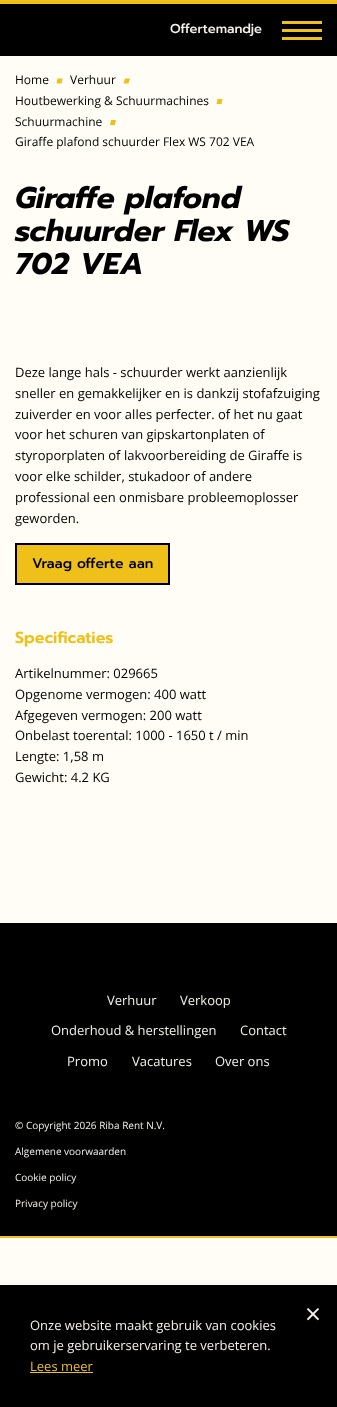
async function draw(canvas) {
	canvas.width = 337;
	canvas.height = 1407;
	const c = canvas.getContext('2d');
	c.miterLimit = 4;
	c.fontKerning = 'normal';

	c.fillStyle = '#fffdf5';
	c.fillRect(0, 0, 337, 1407);
	c.fillStyle = '#efc01a';
	c.fillRect(0, 0, 337, 4);
	c.fillStyle = '#000';
	c.fillRect(0, 4, 337, 52);
	c.font = '500 13px Prompt';
	c.fillStyle = '#f3f0e8';
	c.fillText('Offertemandje', 170, 33);
	for (const [x, y, w, h, color] of [
		[282, 37, 40, 3, '#efc01a'],
		[282, 21, 40, 3, '#efc01a'],
		[282, 29, 40, 3, '#efc01a'],
	]) {
		c.fillStyle = color;
		c.fillRect(x, y, w, h);
	}
	c.font = '12px Open Sans';
	c.fillStyle = '#000';
	c.fillText('Home', 15, 84);
	c.fillStyle = '#efc01a';
	c.beginPath();
	c.moveTo(57.5, 78.5);
	c.lineTo(62.5, 78.5);
	c.lineTo(61.5, 83.5);
	c.lineTo(56.5, 83.5);
	c.closePath();
	c.fill();
	c.fillStyle = '#000';
	c.fillText('Verhuur', 70, 84);
	c.fillStyle = '#efc01a';
	c.beginPath();
	c.moveTo(125, 78.5);
	c.lineTo(130, 78.5);
	c.lineTo(128.5, 83.5);
	c.lineTo(123.5, 83.5);
	c.closePath();
	c.fill();
	c.fillStyle = '#000';
	c.fillText('Houtbewerking & Schuurmachines', 15, 105);
	c.fillStyle = '#efc01a';
	c.beginPath();
	c.moveTo(217.5, 99);
	c.lineTo(222.5, 99);
	c.lineTo(221.5, 104);
	c.lineTo(216.5, 104);
	c.closePath();
	c.fill();
	c.fillStyle = '#000';
	c.fillText('Schuurmachine', 15, 126);
	c.fillStyle = '#efc01a';
	c.beginPath();
	c.moveTo(111, 120);
	c.lineTo(116, 120);
	c.lineTo(115, 125);
	c.lineTo(110, 125);
	c.closePath();
	c.fill();
	c.fillStyle = '#000';
	c.fillText('Giraffe plafond schuurder Flex WS 702 VEA', 15, 146);
	c.font = 'italic bold 30px Prompt';
	for (const [text, x, y] of [
		['Giraffe plafond', 15, 208],
		['schuurder Flex WS', 15, 241],
		['702 VEA', 15, 274],
	]) {
		c.fillText(text, x, y);
	}
	c.font = '13px Open Sans';
	for (const [text, x, y] of [
		['Deze lange hals - schuurder werkt aanzienlijk', 15, 377],
		['sneller en gemakkelijker en is dankzij stofafzuiging', 15, 398],
		['zuiverder en voor alles perfecter. of het nu gaat', 15, 419],
		['voor het schuren van gipskartonplaten of', 15, 439],
		['styroporplaten of lakvoorbereiding de Giraffe is', 15, 460],
		['voor elke schilder, stukadoor of andere', 15, 481],
		['professional een onmisbare probleemoplosser', 15, 502],
		['geworden.', 15, 523],
	]) {
		c.fillText(text, x, y);
	}
	c.fillStyle = '#efc01a';
	c.beginPath();
	c.rect(16, 544, 153, 40);
	c.fill();
	c.strokeStyle = '#000';
	c.lineWidth = 2;
	c.stroke();
	c.font = '500 14px Prompt';
	c.fillStyle = '#000';
	c.fillText('Vraag offerte aan', 32, 568);
	c.font = '600 16px Prompt';
	c.fillStyle = '#efc01a';
	c.fillText('Specificaties', 15, 643);
	c.font = '13px Open Sans';
	c.fillStyle = '#000';
	for (const [text, x, y] of [
		['Artikelnummer: 029665', 15, 678],
		['Opgenome vermogen: 400 watt', 15, 699],
		['Afgegeven vermogen: 200 watt', 15, 720],
		['Onbelast toerental: 1000 - 1650 t / min', 15, 740],
		['Lengte: 1,58 m', 15, 761],
		['Gewicht: 4.2 KG', 15, 782],
	]) {
		c.fillText(text, x, y);
	}
	c.fillRect(0, 923, 337, 313);
	c.fillStyle = '#efc01a';
	c.fillRect(0, 1236, 337, 2);
	c.fillStyle = '#f3f0e8';
	for (const [text, x, y] of [
		['Verhuur', 107, 1005],
		['Verkoop', 180, 1005],
		['Onderhoud & herstellingen', 51, 1035],
		['Contact', 240, 1035],
		['Promo', 67, 1066],
		['Vacatures', 132, 1066],
		['Over ons', 215, 1066],
	]) {
		c.fillText(text, x, y);
	}
	c.font = '10px Open Sans';
	for (const [text, x, y] of [
		['© Copyright 2026 Riba Rent N.V.', 15, 1129],
		['Algemene voorwaarden', 15, 1155],
		['Cookie policy', 15, 1181],
		['Privacy policy', 15, 1207],
	]) {
		c.fillText(text, x, y);
	}
	c.fillStyle = '#00000026';
	c.filter = 'blur(8px)';
	c.beginPath();
	c.rect(0, 1293, 337, 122);
	c.fill();
	c.filter = 'none';
	c.fillStyle = '#000';
	c.fillRect(0, 1285, 337, 122);
	c.font = '28px Open Sans';
	c.fillStyle = '#f3f0e8';
	c.fillText('×', 305, 1324);
	c.font = '13px Open Sans';
	c.fillText('Onze website maakt gebruik van cookies', 30, 1330);
	c.fillText('om je gebruikerservaring te verbeteren.', 30, 1350);
	c.fillStyle = '#efc01a';
	c.fillText('Lees meer', 30, 1371);
	c.fillRect(30, 1372, 63, 1);
}

draw(document.querySelector('canvas'));
